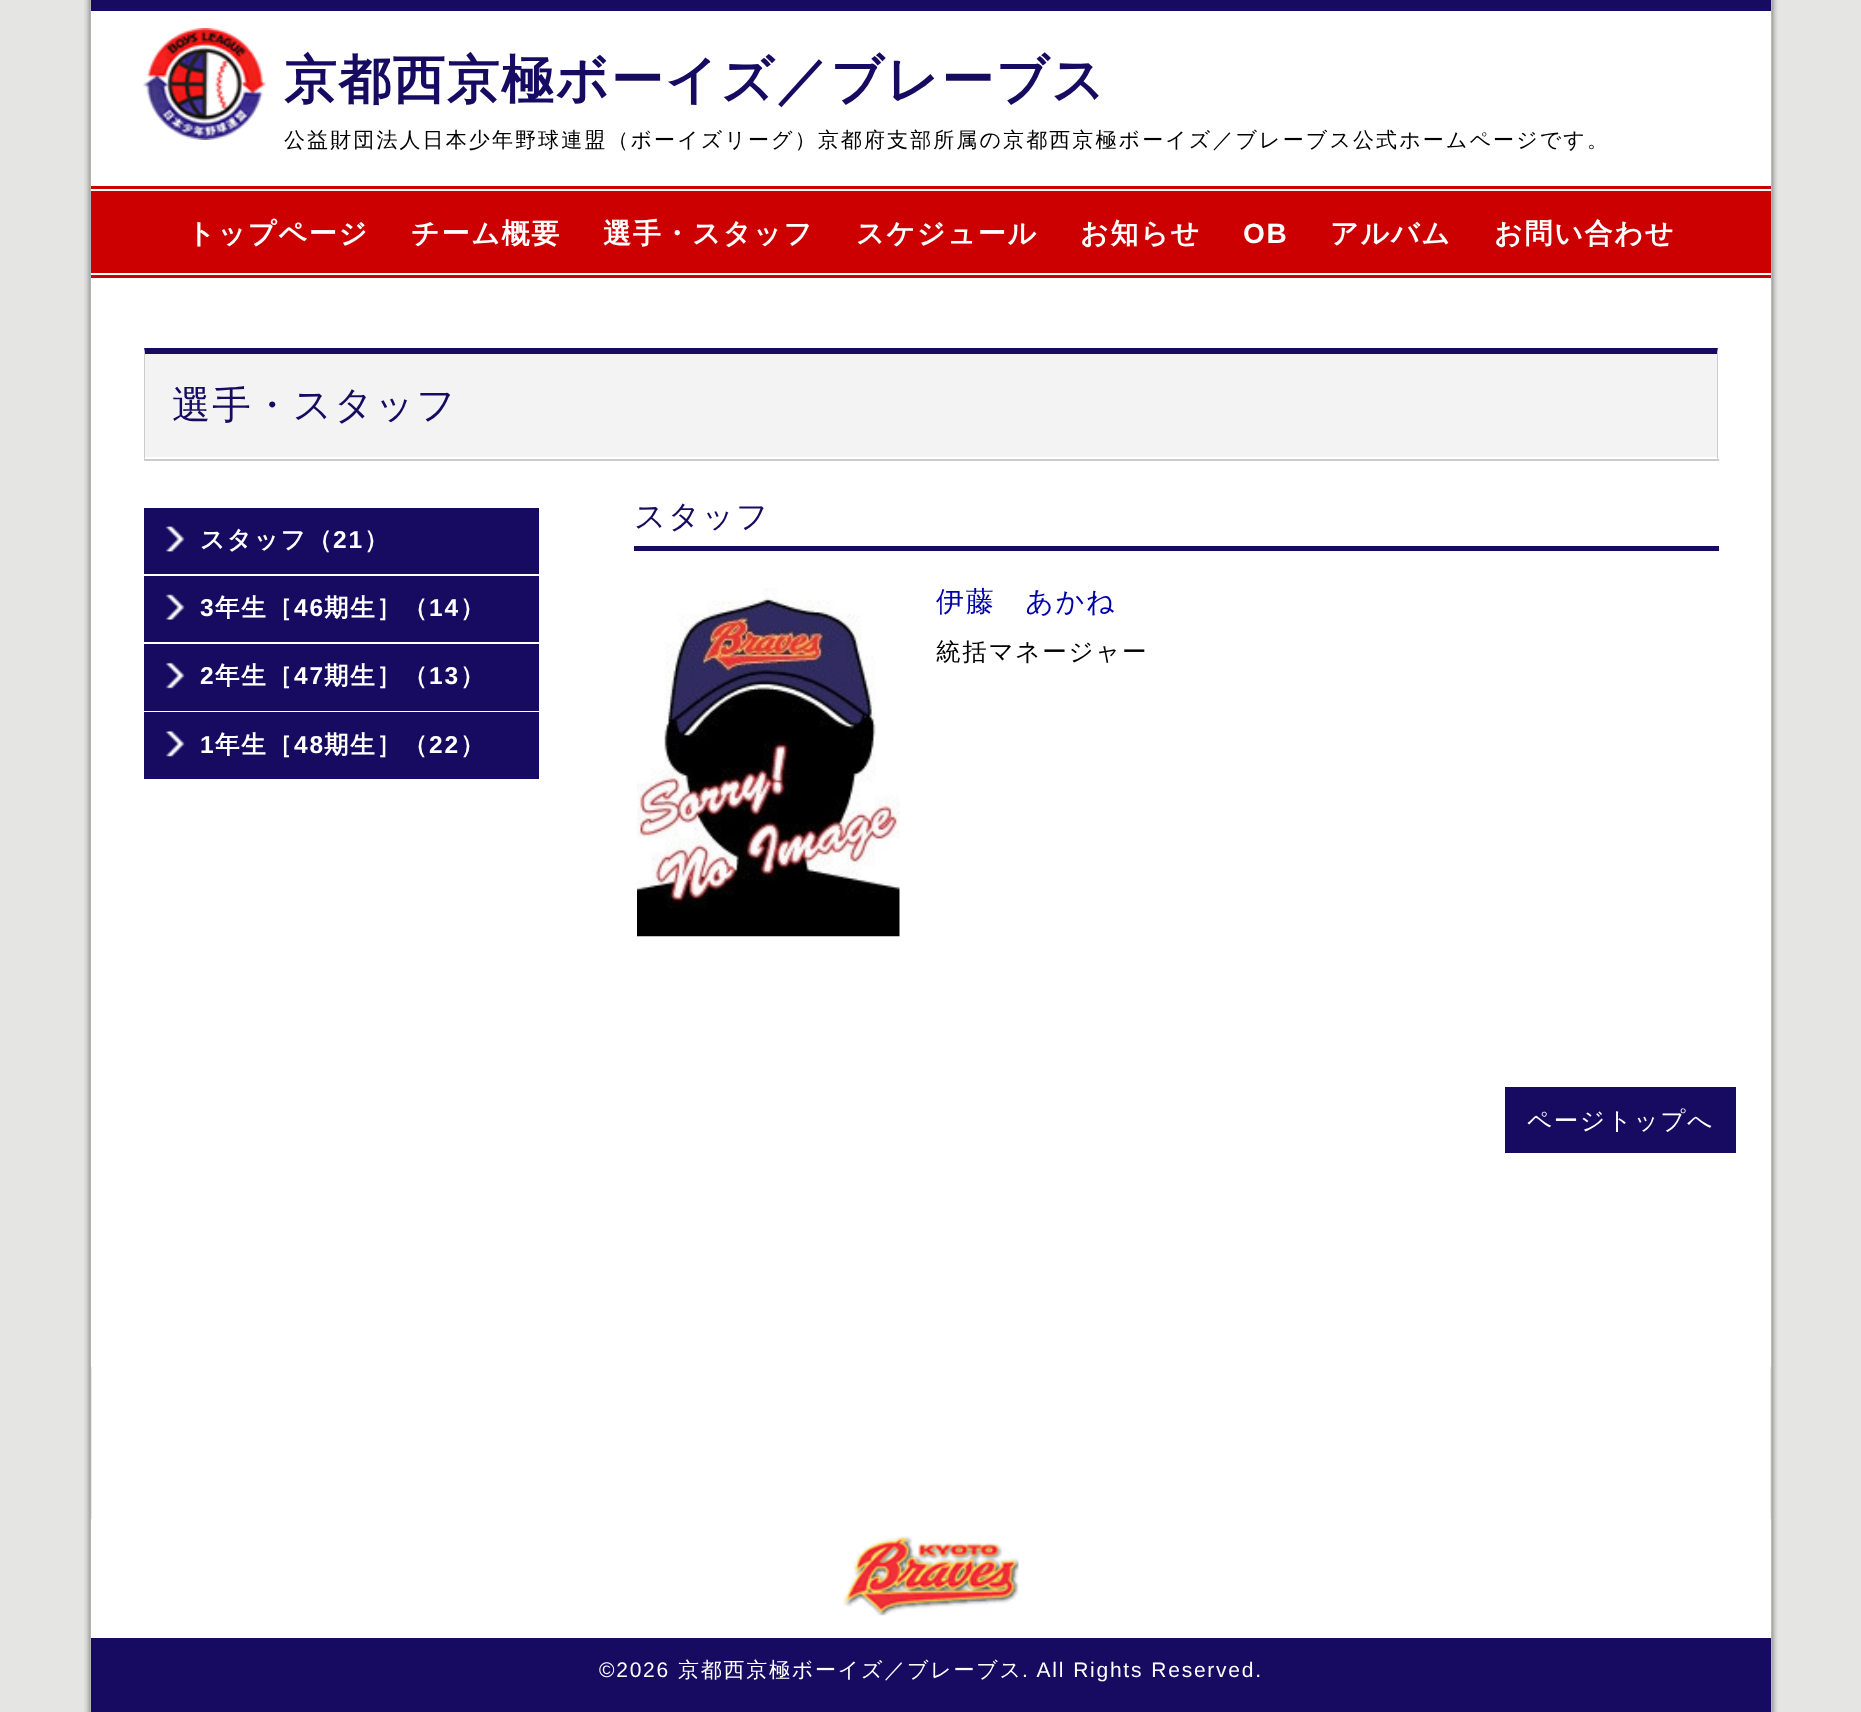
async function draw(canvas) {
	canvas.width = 1861;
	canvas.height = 1712;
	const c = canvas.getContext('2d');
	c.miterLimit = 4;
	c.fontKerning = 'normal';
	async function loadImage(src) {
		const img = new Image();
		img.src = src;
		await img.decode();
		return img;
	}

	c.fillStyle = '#e5e6e4';
	c.fillRect(0, 0, 1861, 1712);
	c.drawImage(await loadImage('img1.png'), 84, 0, 1694, 1712);
	c.fillStyle = '#fff';
	c.fillRect(91, 11, 1680, 1356);
	c.fillStyle = '#160a61';
	c.fillRect(91, 0, 1680, 11);
	c.drawImage(await loadImage('img2.png'), 143, 28, 123, 112);
	c.letterSpacing = '1.75px';
	c.font = 'bold 52.5px WenQuanYi Zen Hei';
	c.fillText('京都西京極ボーイズ／ブレーブス', 284, 98);
	c.letterSpacing = '2.1px';
	c.font = '500 21px WenQuanYi Zen Hei';
	c.fillStyle = '#000';
	c.fillText('公益財団法人日本少年野球連盟（ボーイズリーグ）京都府支部所属の京都西京極ボーイズ／ブレーブス公式ホームページです。', 284, 147);
	c.fillStyle = '#c00';
	c.fillRect(91, 186, 1680, 92);
	c.fillStyle = '#fff';
	c.fillRect(91, 189, 1680, 2);
	c.letterSpacing = '1.75px';
	c.font = 'bold 28px WenQuanYi Zen Hei';
	for (const [text, x, y] of [
		['トップページ', 187, 243],
		['チーム概要', 411, 243],
		['選手・スタッフ', 603, 243],
		['スケジュール', 856, 243],
		['お知らせ', 1080, 243],
	]) {
		c.fillText(text, x, y);
	}
	c.font = 'bold 28px Liberation Sans';
	c.fillText('OB', 1243, 243);
	c.font = 'bold 28px WenQuanYi Zen Hei';
	c.fillText('アルバム', 1330, 243);
	c.fillText('お問い合わせ', 1494, 243);
	c.fillRect(91, 273, 1680, 2);
	c.fillStyle = '#f3f3f3';
	c.fillRect(145, 354, 1572, 103);
	c.fillStyle = '#160a61';
	c.beginPath();
	c.moveTo(144, 348);
	c.lineTo(1718, 348);
	c.lineTo(1717, 354);
	c.lineTo(145, 354);
	c.closePath();
	c.fill();
	c.fillStyle = '#ccc';
	c.beginPath();
	c.moveTo(1718, 348);
	c.lineTo(1718, 460);
	c.lineTo(1717, 458);
	c.lineTo(1717, 354);
	c.closePath();
	c.fill();
	c.fillRect(144, 459, 1575, 2);
	c.beginPath();
	c.moveTo(144, 460);
	c.lineTo(144, 348);
	c.lineTo(145, 354);
	c.lineTo(145, 458);
	c.closePath();
	c.fill();
	c.font = '500 38.5px WenQuanYi Zen Hei';
	c.fillStyle = '#160a61';
	c.fillText('選手・スタッフ', 172, 418);
	c.font = '500 31.5px WenQuanYi Zen Hei';
	c.fillText('スタッフ', 634, 527);
	c.fillRect(634, 546, 1085, 5);
	c.drawImage(await loadImage('img3.png'), 637, 588, 263, 349);
	c.font = '500 28px WenQuanYi Zen Hei';
	c.fillStyle = '#00a';
	c.fillText('伊藤　あかね', 936, 611);
	c.font = '500 24.5px WenQuanYi Zen Hei';
	c.fillStyle = '#000';
	c.fillText('統括マネージャー', 936, 660);
	c.fillStyle = '#160a61';
	c.fillRect(144, 508, 395, 66);
	c.drawImage(await loadImage('img4.png'), 165, 526, 20, 26);
	c.font = 'bold 24.5px WenQuanYi Zen Hei';
	c.fillStyle = '#fff';
	c.fillText('スタッフ（', 200, 548);
	c.font = 'bold 24.5px Liberation Sans';
	c.fillText('21', 333, 548);
	c.font = 'bold 24.5px WenQuanYi Zen Hei';
	c.fillText('）', 364, 548);
	c.fillStyle = '#160a61';
	c.fillRect(144, 576, 395, 66);
	c.drawImage(await loadImage('img5.png'), 165, 594, 20, 26);
	c.font = 'bold 24.5px Liberation Sans';
	c.fillStyle = '#fff';
	c.fillText('3', 200, 616);
	c.font = 'bold 24.5px WenQuanYi Zen Hei';
	c.fillText('年生［', 215, 616);
	c.font = 'bold 24.5px Liberation Sans';
	c.fillText('46', 294, 616);
	c.font = 'bold 24.5px WenQuanYi Zen Hei';
	c.fillText('期生］（', 324, 616);
	c.font = 'bold 24.5px Liberation Sans';
	c.fillText('14', 429, 616);
	c.font = 'bold 24.5px WenQuanYi Zen Hei';
	c.fillText('）', 460, 616);
	c.fillStyle = '#160a61';
	c.fillRect(144, 644, 395, 67);
	c.drawImage(await loadImage('img6.png'), 165, 662, 20, 27);
	c.font = 'bold 24.5px Liberation Sans';
	c.fillStyle = '#fff';
	c.fillText('2', 200, 684);
	c.font = 'bold 24.5px WenQuanYi Zen Hei';
	c.fillText('年生［', 215, 684);
	c.font = 'bold 24.5px Liberation Sans';
	c.fillText('47', 294, 684);
	c.font = 'bold 24.5px WenQuanYi Zen Hei';
	c.fillText('期生］（', 324, 684);
	c.font = 'bold 24.5px Liberation Sans';
	c.fillText('13', 429, 684);
	c.font = 'bold 24.5px WenQuanYi Zen Hei';
	c.fillText('）', 460, 684);
	c.fillStyle = '#160a61';
	c.fillRect(144, 712, 395, 67);
	c.drawImage(await loadImage('img7.png'), 165, 731, 20, 26);
	c.font = 'bold 24.5px Liberation Sans';
	c.fillStyle = '#fff';
	c.fillText('1', 200, 753);
	c.font = 'bold 24.5px WenQuanYi Zen Hei';
	c.fillText('年生［', 215, 753);
	c.font = 'bold 24.5px Liberation Sans';
	c.fillText('48', 294, 753);
	c.font = 'bold 24.5px WenQuanYi Zen Hei';
	c.fillText('期生］（', 324, 753);
	c.font = 'bold 24.5px Liberation Sans';
	c.fillText('22', 429, 753);
	c.font = 'bold 24.5px WenQuanYi Zen Hei';
	c.fillText('）', 460, 753);
	c.fillStyle = '#160a61';
	c.fillRect(1505, 1087, 231, 66);
	c.font = '500 24.5px WenQuanYi Zen Hei';
	c.fillStyle = '#fff';
	c.fillText('ページトップへ', 1527, 1129);
	c.fillRect(91, 1519, 1680, 119);
	c.drawImage(await loadImage('img8.png'), 843, 1536, 176, 80);
	c.fillStyle = '#160a61';
	c.fillRect(91, 1638, 1680, 74);
	c.font = '21px Liberation Sans';
	c.fillStyle = '#fff';
	c.fillText('©2026', 599, 1677);
	c.font = '500 21px WenQuanYi Zen Hei';
	c.fillText('京都西京極ボーイズ／ブレーブス', 678, 1677);
	c.wordSpacing = '0.5px';
	c.font = '21px Liberation Sans';
	c.fillText('. All Rights Reserved.', 1022, 1677);
}

draw(document.querySelector('canvas'));
